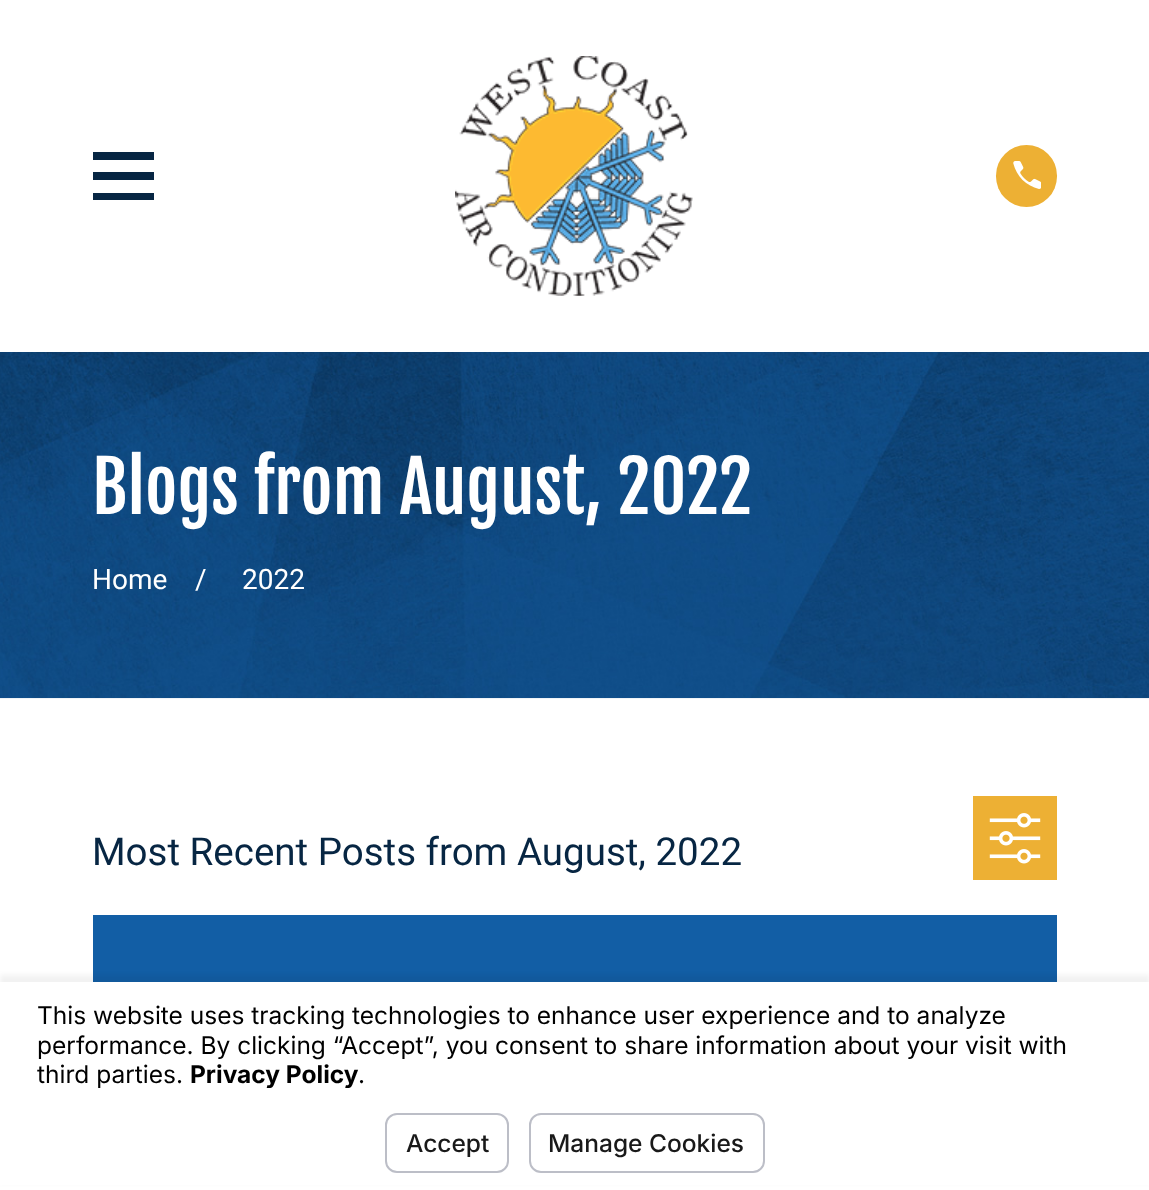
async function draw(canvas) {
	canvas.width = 1149;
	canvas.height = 1190;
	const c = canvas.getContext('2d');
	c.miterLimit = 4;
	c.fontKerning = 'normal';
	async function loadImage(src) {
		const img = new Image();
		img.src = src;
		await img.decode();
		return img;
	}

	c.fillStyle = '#fff';
	c.fillRect(0, 0, 1149, 1190);
	c.fillStyle = '#072643';
	c.beginPath();
	c.moveTo(93, 152);
	c.lineTo(93, 160);
	c.lineTo(154, 160);
	c.lineTo(154, 152);
	c.closePath();
	c.moveTo(93, 172);
	c.lineTo(93, 180);
	c.lineTo(154, 180);
	c.lineTo(154, 172);
	c.closePath();
	c.moveTo(93, 193);
	c.lineTo(93, 200);
	c.lineTo(154, 200);
	c.lineTo(154, 193);
	c.closePath();
	c.fill();
	c.drawImage(await loadImage('img1.png'), 455, 56, 238, 240);
	c.fillStyle = '#edb034';
	c.beginPath();
	c.roundRect(996, 145, 61, 62, 30.5);
	c.fill();
	c.drawImage(await loadImage('img2.png'), 1013, 161, 28, 28);
	c.drawImage(await loadImage('img3.png'), 0, 352, 1149, 347);
	c.font = '70px Fjalla One';
	c.fillStyle = '#fff';
	c.fillText('Blogs from August, 2022', 92, 514);
	c.font = '28px Roboto';
	for (const [text, x, y] of [
		['Home', 92, 589],
		['/', 195, 589],
		['2022', 242, 589],
	]) {
		c.fillText(text, x, y);
	}
	c.font = '38.5px Roboto';
	c.fillStyle = '#072643';
	c.fillText('Most Recent Posts from August, 2022', 92, 865);
	c.fillStyle = '#edb034';
	c.fillRect(973, 796, 84, 84);
	c.drawImage(await loadImage('img4.png'), 989, 813, 52, 51);
	c.fillStyle = '#125ea5';
	c.fillRect(93, 915, 964, 67);
	c.fillStyle = '#0000000d';
	c.filter = 'blur(2.5px)';
	c.beginPath();
	c.rect(0, 975, 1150, 208);
	c.fill();
	c.filter = 'none';
	c.fillStyle = '#fff';
	c.fillRect(0, 982, 1149, 203);
	c.font = '24.5px Inter';
	c.fillStyle = '#000';
	for (const [text, x, y] of [
		['This website uses tracking technologies to enhance user experience and to analyze', 37, 1024],
		['performance. By clicking “Accept”, you consent to share information about your visit with', 37, 1054],
		['third parties.', 37, 1083],
	]) {
		c.fillText(text, x, y);
	}
	c.font = 'bold 24.5px Inter';
	c.fillText('Privacy Policy', 190, 1083);
	c.font = '24.5px Inter';
	c.fillText('.', 358, 1083);
	c.beginPath();
	c.roundRect(386, 1114, 122, 58, 11);
	c.strokeStyle = '#bcbec7';
	c.lineWidth = 2;
	c.stroke();
	c.font = '500 24.5px Inter';
	c.fillStyle = '#191919';
	c.fillText('Accept', 406, 1152);
	c.beginPath();
	c.roundRect(530, 1114, 234, 58, 11);
	c.stroke();
	c.fillText('Manage Cookies', 548, 1152);
}

draw(document.querySelector('canvas'));
